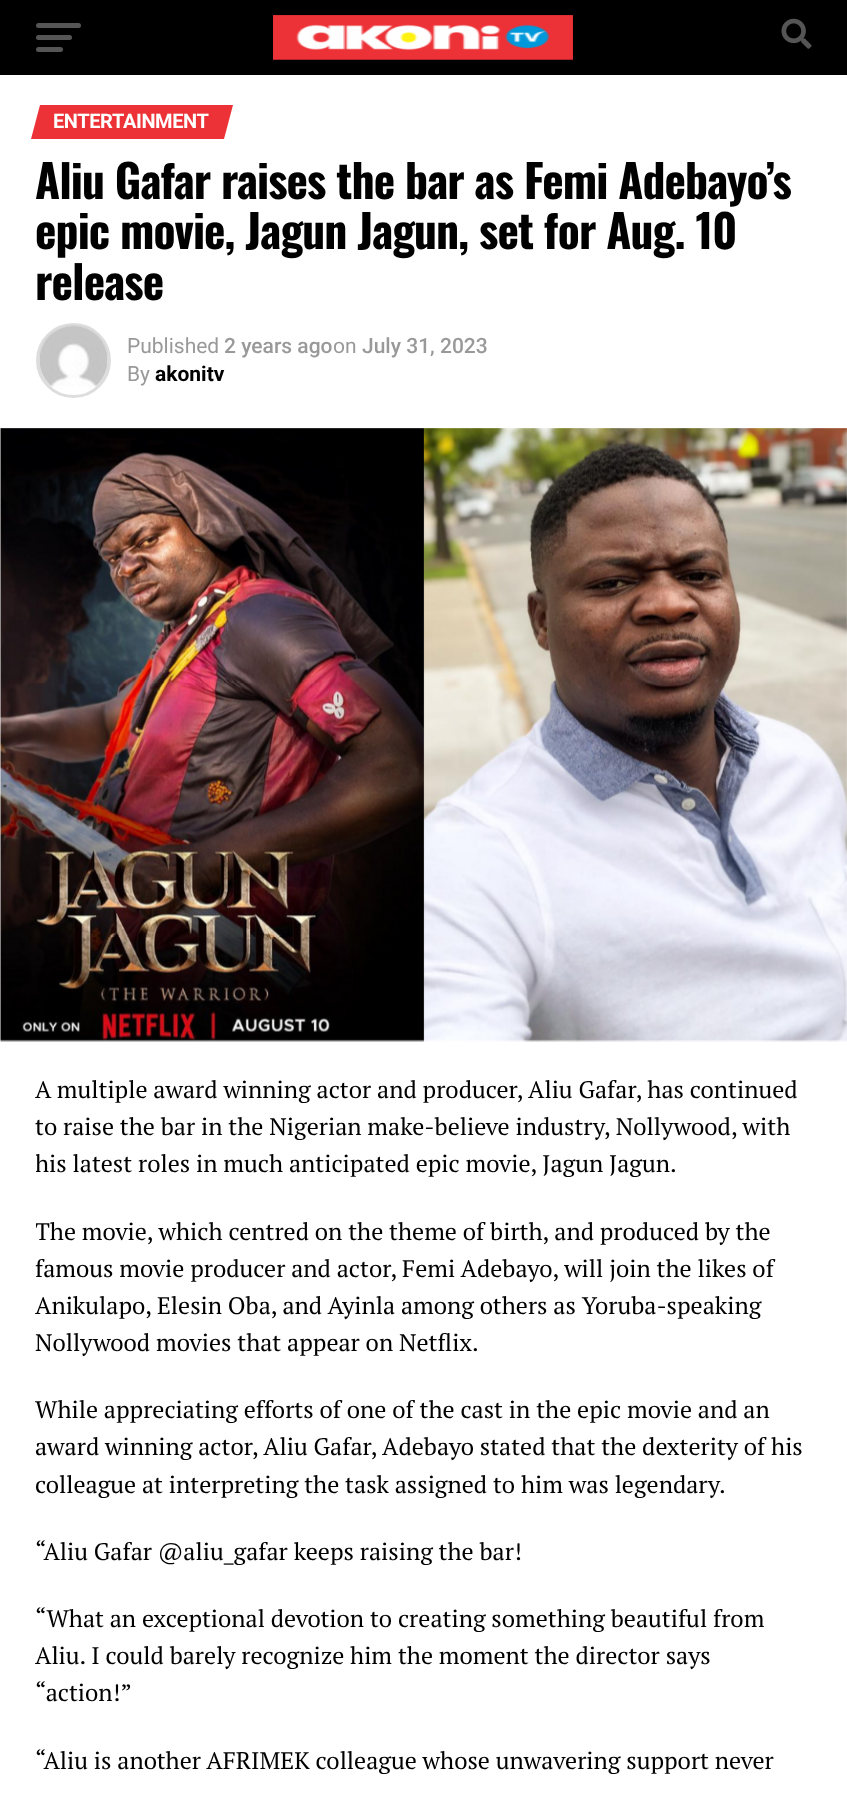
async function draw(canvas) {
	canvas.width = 847;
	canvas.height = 1799;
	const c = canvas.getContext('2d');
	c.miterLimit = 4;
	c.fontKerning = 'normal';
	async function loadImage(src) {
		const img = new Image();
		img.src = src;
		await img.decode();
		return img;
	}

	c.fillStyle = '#fff';
	c.fillRect(0, 0, 847, 1799);
	c.fillStyle = '#000';
	c.fillRect(0, 0, 847, 75);
	c.fillStyle = '#555';
	c.beginPath();
	c.roundRect(36, 23, 45, 5, 2.5);
	c.fill();
	c.beginPath();
	c.roundRect(36, 35, 36, 5, 2.5);
	c.fill();
	c.beginPath();
	c.roundRect(36, 47, 27, 5, 2.5);
	c.fill();
	c.drawImage(await loadImage('img1.png'), 273, 15, 300, 45);
	c.drawImage(await loadImage('img2.png'), 781, 18, 31, 31);
	c.fillStyle = '#ed3237';
	c.beginPath();
	c.moveTo(40, 105);
	c.lineTo(233, 105);
	c.lineTo(224, 139);
	c.lineTo(31, 139);
	c.closePath();
	c.fill();
	c.letterSpacing = '-0.4px';
	c.font = 'bold 20px Roboto';
	c.fillStyle = '#fff';
	c.fillText('ENTERTAINMENT', 53, 128);
	c.letterSpacing = '-0.9px';
	c.font = 'bold 45.6px Oswald';
	c.fillStyle = '#000';
	for (const [text, x, y] of [
		['Aliu Gafar raises the bar as Femi Adebayo’s', 35, 199],
		['epic movie, Jagun Jagun, set for Aug. 10', 35, 249],
		['release', 35, 300],
	]) {
		c.fillText(text, x, y);
	}
	c.beginPath();
	c.arc(73.5, 360.5, 36, 0, 2 * Math.PI);
	c.strokeStyle = '#ddd';
	c.lineWidth = 3;
	c.stroke();
	c.drawImage(await loadImage('img3.png'), 39, 325, 69, 64);
	c.letterSpacing = '0px';
	c.font = '21px Roboto';
	c.fillStyle = '#999';
	c.fillText('Published', 127, 353);
	c.font = '500 21px Roboto';
	c.fillText('2 years ago', 224, 353);
	c.font = '21px Roboto';
	c.fillText('on', 333, 353);
	c.font = '500 21px Roboto';
	c.fillText('July 31, 2023', 362, 353);
	c.font = '21px Roboto';
	c.fillText('By', 127, 381);
	c.font = 'bold 21px Roboto';
	c.fillStyle = '#000';
	c.fillText('akonitv', 155, 381);
	c.drawImage(await loadImage('img4.png'), 0, 428, 847, 614);
	c.font = '24px PT Serif';
	c.fillText('A multiple award winning actor and producer, Aliu Gafar, has continued', 35, 1098);
	c.fillText('to raise the bar in the Nigerian make-believe industry, Nollywood, with', 35, 1135);
	c.save();
	c.beginPath();
	c.rect(36, 1071, 776, 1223);
	c.clip();
	c.fillText('his latest roles in much anticipated epic movie, Jagun Jagun.', 35, 1172);
	c.fillText('The movie, which centred on the theme of birth, and produced by the', 35, 1240);
	c.restore();
	for (const [text, x, y] of [
		['famous movie producer and actor, Femi Adebayo, will join the likes of', 35, 1277],
		['Anikulapo, Elesin Oba, and Ayinla among others as Yoruba-speaking', 35, 1314],
		['Nollywood movies that appear on Netflix.', 35, 1351],
		['While appreciating efforts of one of the cast in the epic movie and an', 35, 1418],
		['award winning actor, Aliu Gafar, Adebayo stated that the dexterity of his', 35, 1455],
		['colleague at interpreting the task assigned to him was legendary.', 35, 1493],
		['“Aliu Gafar @aliu_gafar keeps raising the bar!', 35, 1560],
		['“What an exceptional devotion to creating something beautiful from', 35, 1627],
		['Aliu. I could barely recognize him the moment the director says', 35, 1664],
		['“action!”', 35, 1701],
		['“Aliu is another AFRIMEK colleague whose unwavering support never', 35, 1769],
	]) {
		c.fillText(text, x, y);
	}
}

draw(document.querySelector('canvas'));
